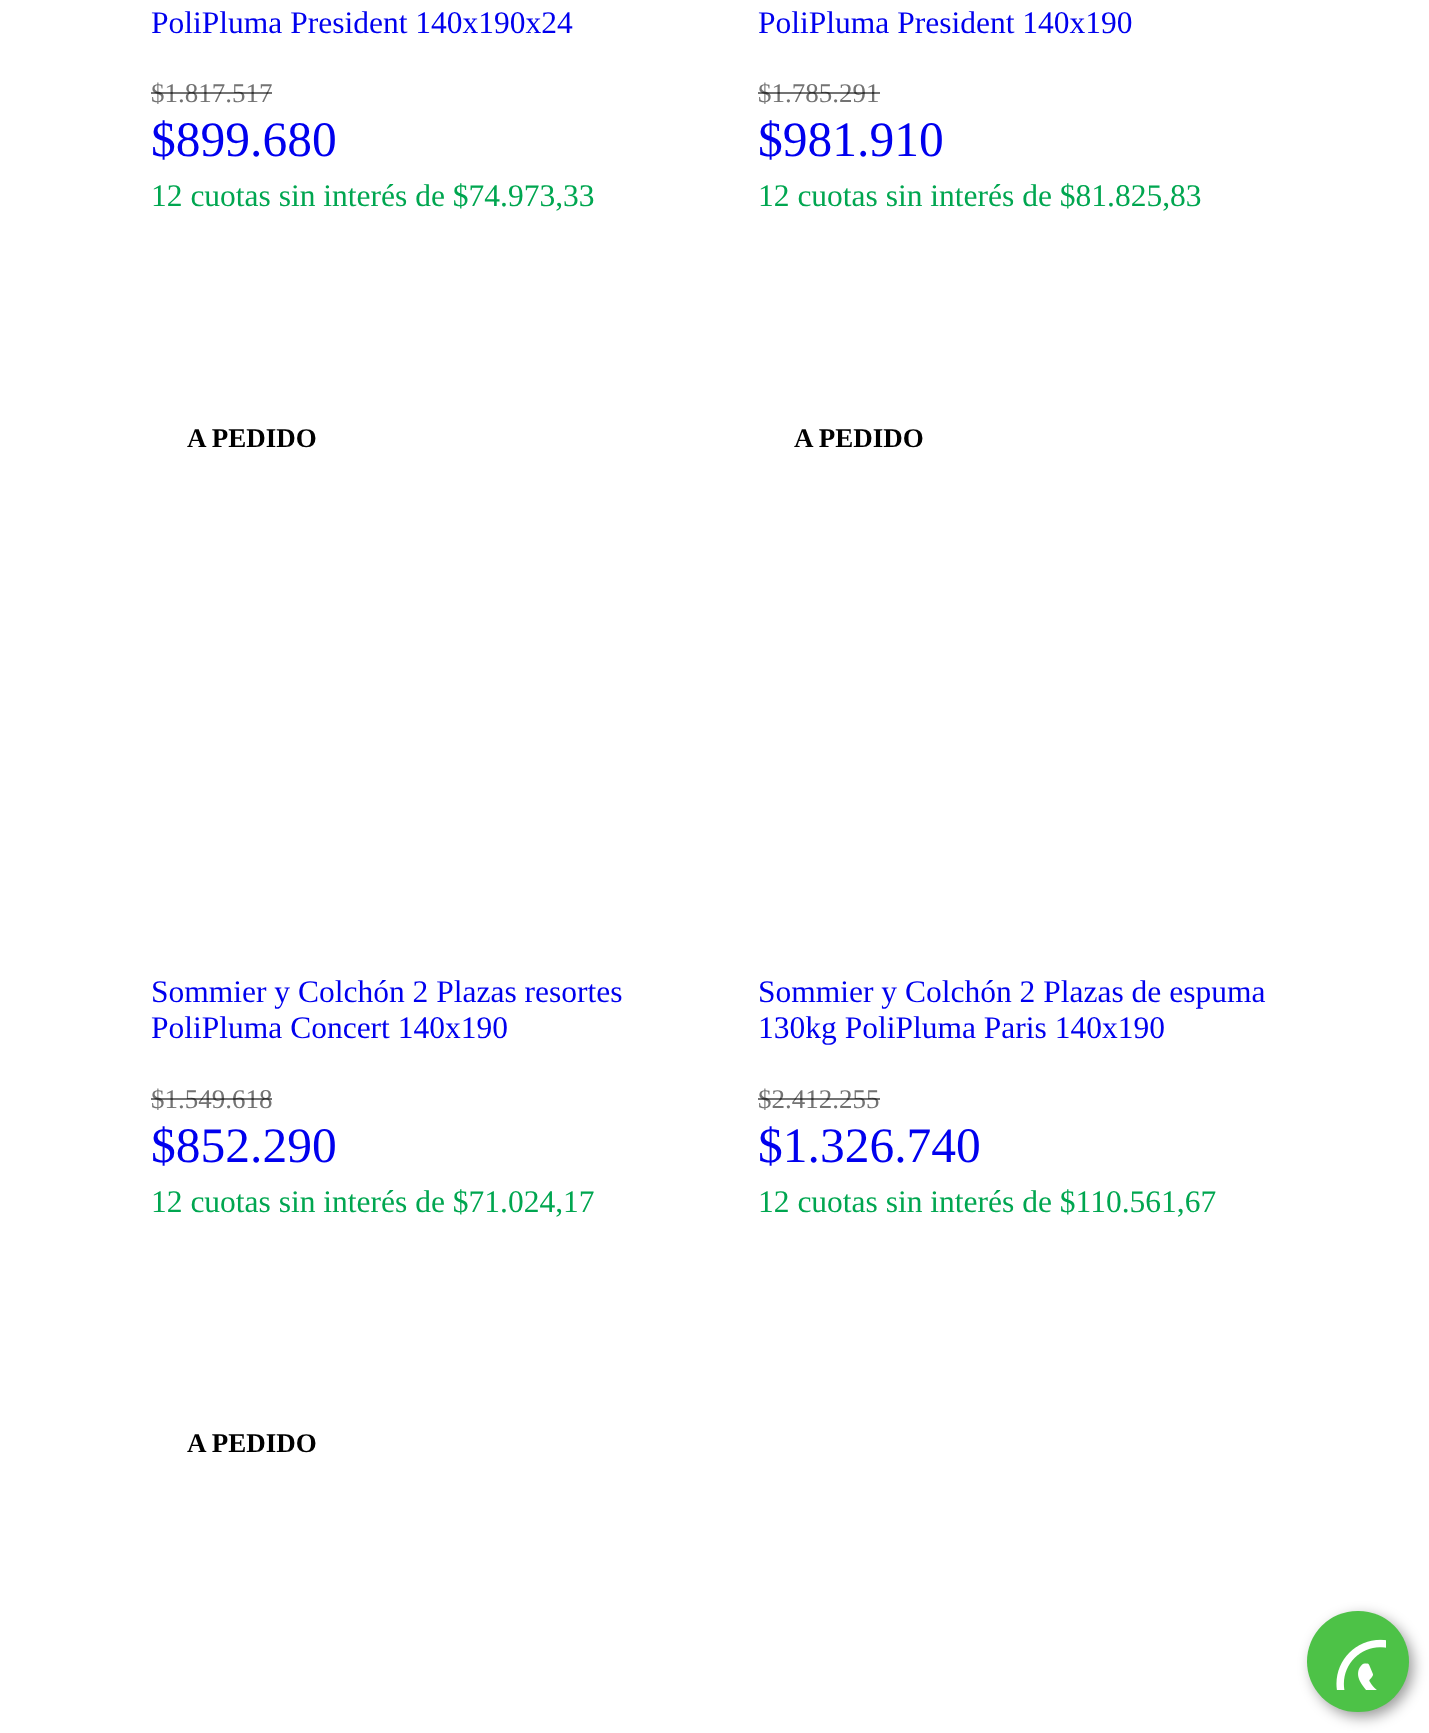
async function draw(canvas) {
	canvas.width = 1429;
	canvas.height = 1733;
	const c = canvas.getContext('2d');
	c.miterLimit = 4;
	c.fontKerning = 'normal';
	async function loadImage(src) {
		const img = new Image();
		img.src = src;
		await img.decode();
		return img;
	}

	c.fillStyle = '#fff';
	c.fillRect(0, 0, 1429, 1733);
	c.font = '31.5px Liberation Serif';
	c.fillStyle = '#00e';
	c.fillText('PoliPluma President 140x190x24', 151, 33);
	c.font = '27px Liberation Serif';
	c.fillStyle = '#737373';
	c.fillText('$1.817.517', 151, 102);
	c.fillStyle = '#0000008c';
	c.fillRect(151, 92, 121, 2);
	c.font = '49.5px Liberation Serif';
	c.fillStyle = '#00e';
	c.fillText('$899.680', 151, 156);
	c.font = '31.5px Liberation Serif';
	c.fillStyle = '#00a650';
	c.fillText('12 cuotas sin interés de $74.973,33', 151, 206);
	c.fillStyle = '#00e';
	c.fillText('PoliPluma President 140x190', 758, 33);
	c.font = '27px Liberation Serif';
	c.fillStyle = '#737373';
	c.fillText('$1.785.291', 758, 102);
	c.fillStyle = '#0000008c';
	c.fillRect(758, 92, 122, 2);
	c.font = '49.5px Liberation Serif';
	c.fillStyle = '#00e';
	c.fillText('$981.910', 758, 156);
	c.font = '31.5px Liberation Serif';
	c.fillStyle = '#00a650';
	c.fillText('12 cuotas sin interés de $81.825,83', 758, 206);
	c.font = 'bold 27px Liberation Serif';
	c.fillStyle = '#000';
	c.fillText('A PEDIDO', 187, 447);
	c.font = '31.5px Liberation Serif';
	c.fillStyle = '#00e';
	c.fillText('Sommier y Colchón 2 Plazas resortes', 151, 1002);
	c.fillText('PoliPluma Concert 140x190', 151, 1038);
	c.font = '27px Liberation Serif';
	c.fillStyle = '#737373';
	c.fillText('$1.549.618', 151, 1108);
	c.fillStyle = '#0000008c';
	c.fillRect(151, 1098, 121, 2);
	c.font = '49.5px Liberation Serif';
	c.fillStyle = '#00e';
	c.fillText('$852.290', 151, 1162);
	c.font = '31.5px Liberation Serif';
	c.fillStyle = '#00a650';
	c.fillText('12 cuotas sin interés de $71.024,17', 151, 1212);
	c.font = 'bold 27px Liberation Serif';
	c.fillStyle = '#000';
	c.fillText('A PEDIDO', 794, 447);
	c.font = '31.5px Liberation Serif';
	c.fillStyle = '#00e';
	c.fillText('Sommier y Colchón 2 Plazas de espuma', 758, 1002);
	c.fillText('130kg PoliPluma Paris 140x190', 758, 1038);
	c.font = '27px Liberation Serif';
	c.fillStyle = '#737373';
	c.fillText('$2.412.255', 758, 1108);
	c.fillStyle = '#0000008c';
	c.fillRect(758, 1098, 122, 2);
	c.font = '49.5px Liberation Serif';
	c.fillStyle = '#00e';
	c.fillText('$1.326.740', 758, 1162);
	c.font = '31.5px Liberation Serif';
	c.fillStyle = '#00a650';
	c.fillText('12 cuotas sin interés de $110.561,67', 758, 1212);
	c.font = 'bold 27px Liberation Serif';
	c.fillStyle = '#000';
	c.fillText('A PEDIDO', 187, 1452);
	c.fillStyle = '#00000066';
	c.filter = 'blur(7px)';
	c.beginPath();
	c.roundRect(1312, 1616, 101, 101, 50.5);
	c.fill();
	c.filter = 'none';
	c.fillStyle = '#4dc247';
	c.beginPath();
	c.roundRect(1307, 1611, 102, 101, 50.5);
	c.fill();
	c.drawImage(await loadImage('img1.png'), 1336, 1639, 50, 51);
}

draw(document.querySelector('canvas'));
